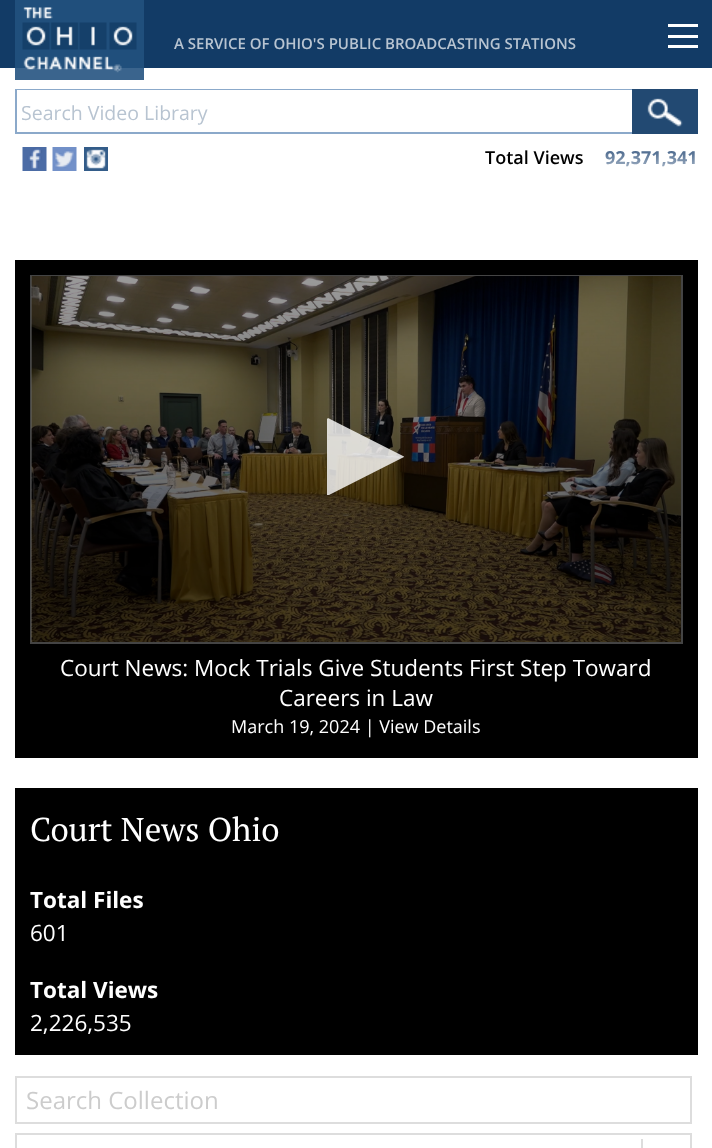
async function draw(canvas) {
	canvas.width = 712;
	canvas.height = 1148;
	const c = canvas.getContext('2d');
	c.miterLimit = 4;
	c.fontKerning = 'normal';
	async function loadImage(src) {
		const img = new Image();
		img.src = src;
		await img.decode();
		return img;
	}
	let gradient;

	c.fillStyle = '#fff';
	c.fillRect(0, 0, 712, 1148);
	for (const [x, y, w, h, color] of [
		[15, 68, 129, 12, '#3a648d'],
		[0, 0, 712, 68, '#123b66'],
		[668, 24, 30, 3, '#fff'],
		[668, 35, 30, 3, '#fff'],
		[668, 45, 30, 3, '#fff'],
		[15, 0, 129, 68, '#204f7c'],
	]) {
		c.fillStyle = color;
		c.fillRect(x, y, w, h);
	}
	c.drawImage(await loadImage('img1.png'), 22, 7, 115, 66);
	c.font = '600 15px Open Sans';
	c.fillStyle = '#b8c4d1';
	c.fillText('A SERVICE OF OHIO\'S PUBLIC BROADCASTING STATIONS', 174, 49);
	c.strokeStyle = '#8ba9ca';
	c.lineWidth = 2;
	c.strokeRect(16, 90, 681, 43);
	c.fillStyle = '#fff';
	c.fillRect(17, 90, 615, 1);
	c.font = '19.5px Open Sans';
	c.fillStyle = '#b8c4d1';
	c.fillText('Search Video Library', 21, 120);
	c.fillStyle = '#224972';
	c.fillRect(632, 89, 66, 45);
	c.drawImage(await loadImage('img2.png'), 647, 98, 36, 29);
	c.drawImage(await loadImage('img3.png'), 22, 147, 25, 24);
	c.drawImage(await loadImage('img4.png'), 52, 147, 25, 24);
	c.drawImage(await loadImage('img5.png'), 84, 147, 24, 24);
	c.font = '600 18px Open Sans';
	c.fillStyle = '#000';
	c.fillText('Total Views', 485, 164);
	c.font = 'bold 18px Open Sans';
	gradient = c.createLinearGradient(651, 144, 651, 170);
	gradient.addColorStop(0, '#2b4e79');
	gradient.addColorStop(1, '#aab8c9');
	c.fillStyle = gradient;
	c.fillText('92,371,341', 605, 164);
	c.fillStyle = '#000';
	c.fillRect(15, 260, 683, 498);
	c.strokeStyle = '#444';
	c.strokeRect(31, 276, 651, 367);
	c.drawImage(await loadImage('img6.png'), 31, 276, 650, 366);
	c.fillStyle = '#ffffffcc';
	c.beginPath();
	c.moveTo(329, 495);
	c.bezierCurveTo(328, 495, 327, 495, 327, 495);
	c.lineTo(327, 419);
	c.lineTo(328, 418);
	c.lineTo(403, 456);
	c.bezierCurveTo(404, 456, 404, 457, 404, 457);
	c.closePath();
	c.fill();
	c.font = '22.5px Open Sans';
	c.fillStyle = '#fff';
	c.fillText('Court News: Mock Trials Give Students First Step Toward', 60, 676);
	c.fillText('Careers in Law', 279, 706);
	c.font = '18px Open Sans';
	c.fillText('March 19, 2024 | View Details', 231, 733);
	c.fillStyle = '#000';
	c.fillRect(15, 788, 683, 267);
	c.font = '33px PT Serif';
	c.fillStyle = '#fff';
	c.fillText('Court News Ohio', 30, 841);
	c.font = 'bold 22.5px Open Sans';
	c.fillText('Total Files', 30, 908);
	c.font = '22.5px Open Sans';
	c.fillText('601', 30, 941);
	c.font = 'bold 22.5px Open Sans';
	c.fillText('Total Views', 30, 998);
	c.font = '22.5px Open Sans';
	c.fillText('2,226,535', 30, 1031);
	c.strokeStyle = '#ddd';
	c.strokeRect(16, 1077, 675, 46);
	c.font = '24px Open Sans';
	c.fillStyle = '#ccc';
	c.fillText('Search Collection', 26, 1109);
	c.strokeRect(16, 1134, 675, 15);
	c.fillStyle = '#ddd';
	c.fillRect(641, 1139, 2, 9);
}

draw(document.querySelector('canvas'));
